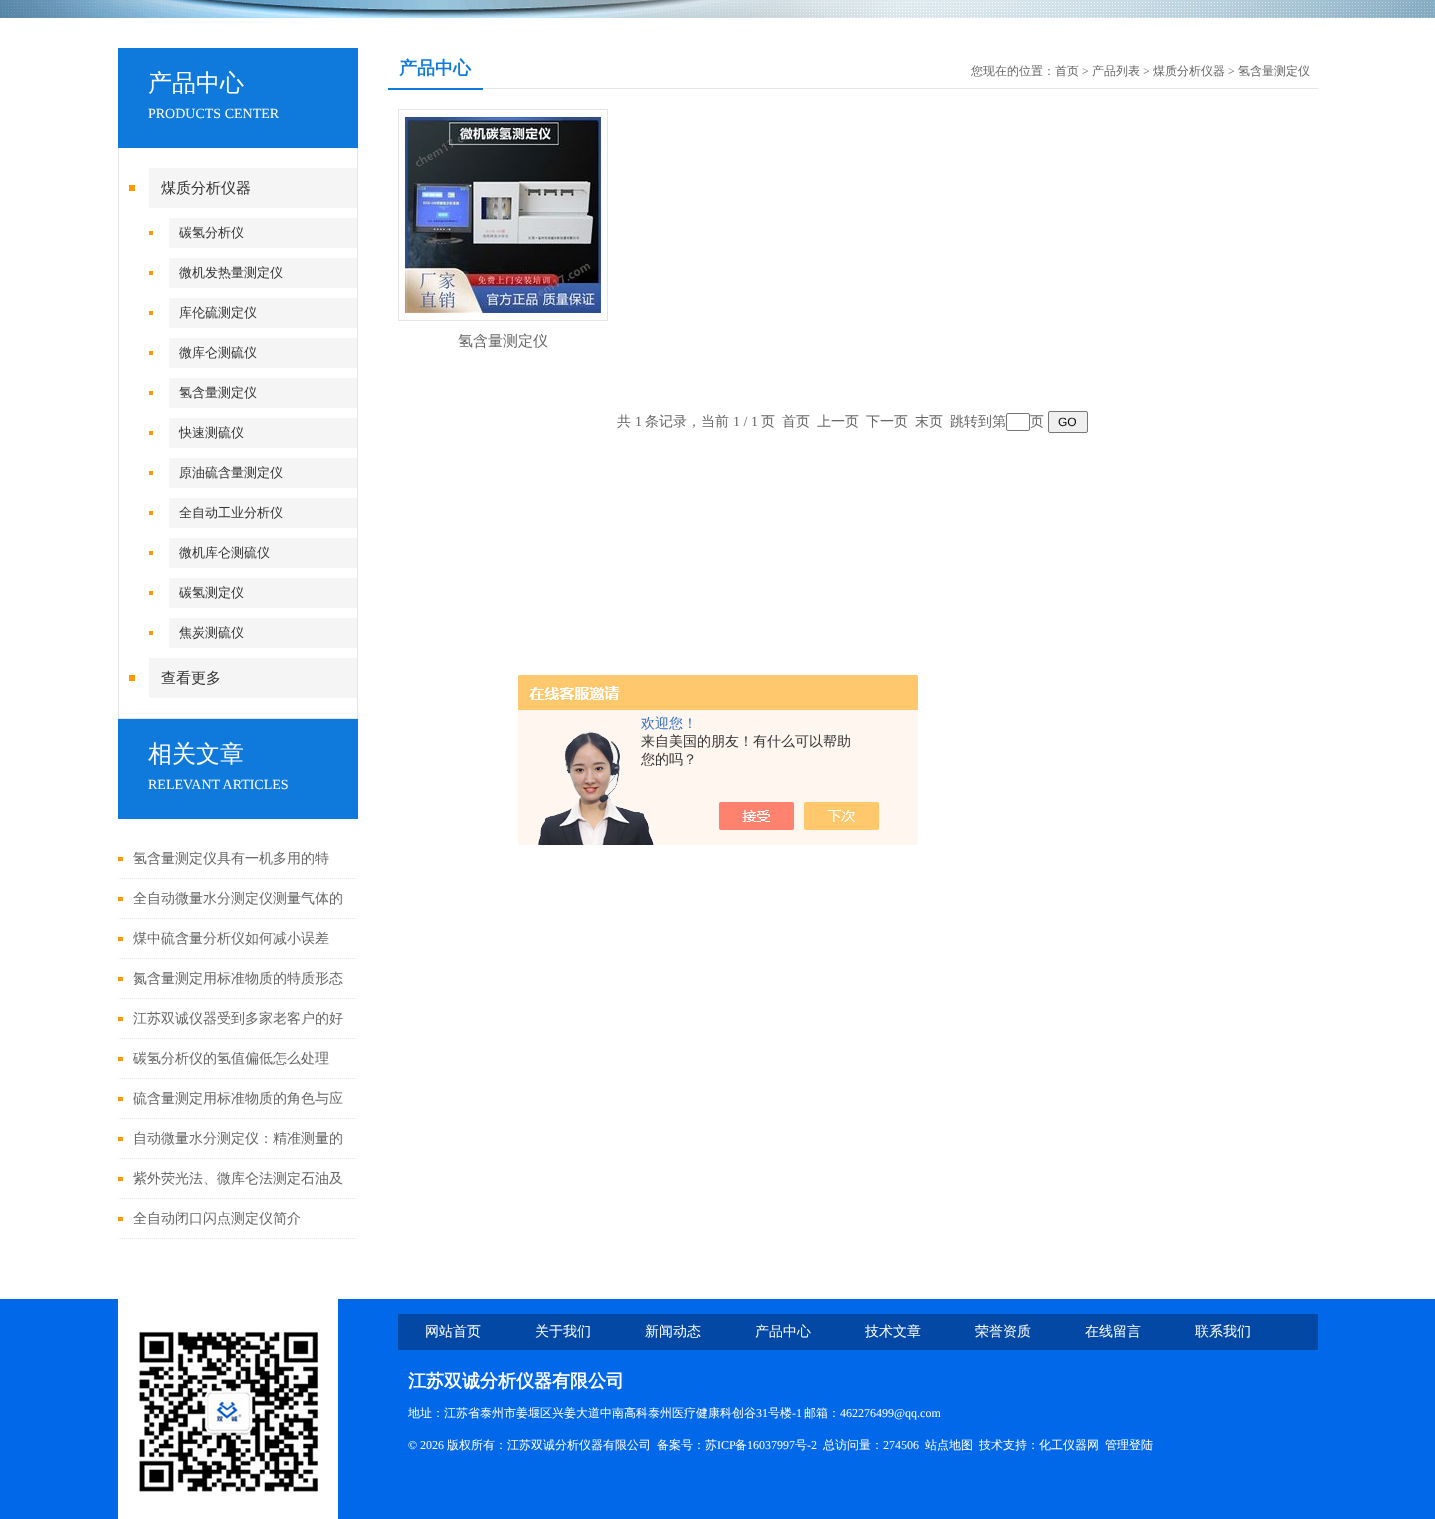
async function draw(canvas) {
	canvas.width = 1435;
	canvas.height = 1519;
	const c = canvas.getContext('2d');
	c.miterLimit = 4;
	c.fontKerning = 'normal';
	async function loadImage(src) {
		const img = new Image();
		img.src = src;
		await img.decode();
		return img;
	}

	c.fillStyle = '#fff';
	c.fillRect(0, 0, 1435, 1519);
	c.drawImage(await loadImage('img1.png'), 0, 0, 1435, 18);
	c.fillStyle = '#0f7adb';
	c.fillRect(118, 48, 240, 100);
	c.font = '500 24px WenQuanYi Zen Hei';
	c.fillStyle = '#fff';
	c.fillText('产品中心', 148, 91);
	c.font = '14px Liberation Serif';
	c.fillText('PRODUCTS CENTER', 148, 118);
	for (const [x, y, w, h, color] of [
		[357, 148, 1, 571, '#e5e5e5'],
		[118, 718, 240, 1, '#e5e5e5'],
		[118, 148, 1, 571, '#e5e5e5'],
		[129, 185, 6, 6, '#f90'],
		[149, 168, 208, 40, '#f5f5f5'],
	]) {
		c.fillStyle = color;
		c.fillRect(x, y, w, h);
	}
	c.font = '500 15px WenQuanYi Zen Hei';
	c.fillStyle = '#333';
	c.fillText('煤质分析仪器', 161, 193);
	c.fillStyle = '#f90';
	c.fillRect(149, 231, 4, 4);
	c.fillStyle = '#f5f5f5';
	c.fillRect(169, 218, 188, 30);
	c.font = '500 13px WenQuanYi Zen Hei';
	c.fillStyle = '#333';
	c.fillText('碳氢分析仪', 179, 237);
	c.fillStyle = '#f90';
	c.fillRect(149, 271, 4, 4);
	c.fillStyle = '#f5f5f5';
	c.fillRect(169, 258, 188, 30);
	c.fillStyle = '#333';
	c.fillText('微机发热量测定仪', 179, 277);
	c.fillStyle = '#f90';
	c.fillRect(149, 311, 4, 4);
	c.fillStyle = '#f5f5f5';
	c.fillRect(169, 298, 188, 30);
	c.fillStyle = '#333';
	c.fillText('库伦硫测定仪', 179, 317);
	c.fillStyle = '#f90';
	c.fillRect(149, 351, 4, 4);
	c.fillStyle = '#f5f5f5';
	c.fillRect(169, 338, 188, 30);
	c.fillStyle = '#333';
	c.fillText('微库仑测硫仪', 179, 357);
	c.fillStyle = '#f90';
	c.fillRect(149, 391, 4, 4);
	c.fillStyle = '#f5f5f5';
	c.fillRect(169, 378, 188, 30);
	c.fillStyle = '#333';
	c.fillText('氢含量测定仪', 179, 397);
	c.fillStyle = '#f90';
	c.fillRect(149, 431, 4, 4);
	c.fillStyle = '#f5f5f5';
	c.fillRect(169, 418, 188, 30);
	c.fillStyle = '#333';
	c.fillText('快速测硫仪', 179, 437);
	c.fillStyle = '#f90';
	c.fillRect(149, 471, 4, 4);
	c.fillStyle = '#f5f5f5';
	c.fillRect(169, 458, 188, 30);
	c.fillStyle = '#333';
	c.fillText('原油硫含量测定仪', 179, 477);
	c.fillStyle = '#f90';
	c.fillRect(149, 511, 4, 4);
	c.fillStyle = '#f5f5f5';
	c.fillRect(169, 498, 188, 30);
	c.fillStyle = '#333';
	c.fillText('全自动工业分析仪', 179, 517);
	c.fillStyle = '#f90';
	c.fillRect(149, 551, 4, 4);
	c.fillStyle = '#f5f5f5';
	c.fillRect(169, 538, 188, 30);
	c.fillStyle = '#333';
	c.fillText('微机库仑测硫仪', 179, 557);
	c.fillStyle = '#f90';
	c.fillRect(149, 591, 4, 4);
	c.fillStyle = '#f5f5f5';
	c.fillRect(169, 578, 188, 30);
	c.fillStyle = '#333';
	c.fillText('碳氢测定仪', 179, 597);
	c.fillStyle = '#f90';
	c.fillRect(149, 631, 4, 4);
	c.fillStyle = '#f5f5f5';
	c.fillRect(169, 618, 188, 30);
	c.fillStyle = '#333';
	c.fillText('焦炭测硫仪', 179, 637);
	c.fillStyle = '#f90';
	c.fillRect(129, 675, 6, 6);
	c.fillStyle = '#f5f5f5';
	c.fillRect(149, 658, 208, 40);
	c.font = '500 15px WenQuanYi Zen Hei';
	c.fillStyle = '#333';
	c.fillText('查看更多', 161, 683);
	c.fillStyle = '#0f7adb';
	c.fillRect(118, 719, 240, 100);
	c.font = '500 24px WenQuanYi Zen Hei';
	c.fillStyle = '#fff';
	c.fillText('相关文章', 148, 762);
	c.font = '14px Liberation Serif';
	c.fillText('RELEVANT ARTICLES', 148, 789);
	c.fillStyle = '#f90';
	c.fillRect(118, 857, 5, 4);
	c.beginPath();
	c.moveTo(118, 878.5);
	c.lineTo(358, 878.5);
	c.strokeStyle = '#e5e5e5';
	c.setLineDash([1, 1]);
	c.stroke();
	c.font = '500 14px WenQuanYi Zen Hei';
	c.fillStyle = '#666';
	c.fillText('氢含量测定仪具有一机多用的特', 133, 863);
	c.fillStyle = '#f90';
	c.fillRect(118, 897, 5, 4);
	c.beginPath();
	c.moveTo(118, 918.5);
	c.lineTo(358, 918.5);
	c.stroke();
	c.fillStyle = '#666';
	c.fillText('全自动微量水分测定仪测量气体的', 133, 903);
	c.fillStyle = '#f90';
	c.fillRect(118, 937, 5, 4);
	c.beginPath();
	c.moveTo(118, 958.5);
	c.lineTo(358, 958.5);
	c.stroke();
	c.fillStyle = '#666';
	c.fillText('煤中硫含量分析仪如何减小误差', 133, 943);
	c.fillStyle = '#f90';
	c.fillRect(118, 977, 5, 4);
	c.beginPath();
	c.moveTo(118, 998.5);
	c.lineTo(358, 998.5);
	c.stroke();
	c.fillStyle = '#666';
	c.fillText('氮含量测定用标准物质的特质形态', 133, 983);
	c.fillStyle = '#f90';
	c.fillRect(118, 1017, 5, 4);
	c.beginPath();
	c.moveTo(118, 1038.5);
	c.lineTo(358, 1038.5);
	c.stroke();
	c.fillStyle = '#666';
	c.fillText('江苏双诚仪器受到多家老客户的好', 133, 1023);
	c.fillStyle = '#f90';
	c.fillRect(118, 1057, 5, 4);
	c.beginPath();
	c.moveTo(118, 1078.5);
	c.lineTo(358, 1078.5);
	c.stroke();
	c.fillStyle = '#666';
	c.fillText('碳氢分析仪的氢值偏低怎么处理', 133, 1063);
	c.fillStyle = '#f90';
	c.fillRect(118, 1097, 5, 4);
	c.beginPath();
	c.moveTo(118, 1118.5);
	c.lineTo(358, 1118.5);
	c.stroke();
	c.fillStyle = '#666';
	c.fillText('硫含量测定用标准物质的角色与应', 133, 1103);
	c.fillStyle = '#f90';
	c.fillRect(118, 1137, 5, 4);
	c.beginPath();
	c.moveTo(118, 1158.5);
	c.lineTo(358, 1158.5);
	c.stroke();
	c.fillStyle = '#666';
	c.fillText('自动微量水分测定仪：精准测量的', 133, 1143);
	c.fillStyle = '#f90';
	c.fillRect(118, 1177, 5, 4);
	c.beginPath();
	c.moveTo(118, 1198.5);
	c.lineTo(358, 1198.5);
	c.stroke();
	c.fillStyle = '#666';
	c.fillText('紫外荧光法、微库仑法测定石油及', 133, 1183);
	c.fillStyle = '#f90';
	c.fillRect(118, 1217, 5, 4);
	c.beginPath();
	c.moveTo(118, 1238.5);
	c.lineTo(358, 1238.5);
	c.stroke();
	c.fillStyle = '#666';
	c.fillText('全自动闭口闪点测定仪简介', 133, 1223);
	c.fillStyle = '#e5e5e5';
	c.fillRect(483, 88, 835, 1);
	c.fillStyle = '#0f7adb';
	c.fillRect(388, 88, 95, 2);
	c.font = 'bold 18px WenQuanYi Zen Hei';
	c.fillText('产品中心', 399, 74);
	c.font = '500 12px WenQuanYi Zen Hei';
	c.fillStyle = '#666';
	c.fillText('您现在的位置：首页', 971, 75);
	c.font = '12px Liberation Serif';
	c.fillText('>', 1082, 75);
	c.font = '500 12px WenQuanYi Zen Hei';
	c.fillText('产品列表', 1092, 75);
	c.font = '12px Liberation Serif';
	c.fillText('>', 1143, 75);
	c.font = '500 12px WenQuanYi Zen Hei';
	c.fillText('煤质分析仪器', 1153, 75);
	c.font = '12px Liberation Serif';
	c.fillText('>', 1228, 75);
	c.font = '500 12px WenQuanYi Zen Hei';
	c.fillText('氢含量测定仪', 1238, 75);
	c.setLineDash([]);
	c.strokeRect(398.5, 109.5, 209, 211);
	c.drawImage(await loadImage('img2.png'), 405, 117, 196, 196);
	c.font = '500 15px WenQuanYi Zen Hei';
	c.fillText('氢含量测定仪', 458, 346);
	c.font = '500 14px WenQuanYi Zen Hei';
	c.fillText('共', 617, 426);
	c.font = '14px Liberation Serif';
	c.fillText('1', 635, 426);
	c.font = '500 14px WenQuanYi Zen Hei';
	c.fillText('条记录，当前', 645, 426);
	c.font = '14px Liberation Serif';
	c.fillText('1 / 1', 733, 426);
	c.font = '500 14px WenQuanYi Zen Hei';
	for (const [text, x, y] of [
		['页', 761, 426],
		['首页', 782, 426],
		['上一页', 817, 426],
		['下一页', 866, 426],
		['末页', 915, 426],
		['跳转到第', 950, 426],
	]) {
		c.fillText(text, x, y);
	}
	c.beginPath();
	c.roundRect(1006.5, 413.5, 23, 17, 1.5);
	c.strokeStyle = '#767676';
	c.stroke();
	c.fillText('页', 1030, 426);
	c.fillStyle = '#efefef';
	c.beginPath();
	c.roundRect(1048.5, 411.5, 39, 21, 1.5);
	c.fill();
	c.stroke();
	c.font = '12px Liberation Sans';
	c.fillStyle = '#000';
	c.fillText('GO', 1058, 426);
	c.drawImage(await loadImage('img3.png'), 518, 675, 400, 170);
	c.font = '500 14px WenQuanYi Zen Hei';
	c.fillStyle = '#2e6ec6';
	c.fillText('欢迎您！', 641, 728);
	c.fillStyle = '#333';
	c.fillText('来自美国的朋友！有什么可以帮助', 641, 746);
	c.fillText('您的吗？', 641, 764);
	c.fillStyle = '#0168e9';
	c.fillRect(0, 1299, 1435, 220);
	c.drawImage(await loadImage('img4.png'), 118, 1299, 220, 220);
	c.fillStyle = '#0248a4';
	c.fillRect(398, 1314, 920, 36);
	c.fillStyle = '#fff';
	for (const [text, x, y] of [
		['网站首页', 425, 1336],
		['关于我们', 535, 1336],
		['新闻动态', 645, 1336],
		['产品中心', 755, 1336],
		['技术文章', 865, 1336],
		['荣誉资质', 975, 1336],
		['在线留言', 1085, 1336],
		['联系我们', 1195, 1336],
	]) {
		c.fillText(text, x, y);
	}
	c.font = 'bold 18px WenQuanYi Zen Hei';
	c.fillText('江苏双诚分析仪器有限公司', 408, 1387);
	c.save();
	c.beginPath();
	c.rect(408, 1402, 900, 32);
	c.clip();
	c.font = '500 12px WenQuanYi Zen Hei';
	c.fillText('地址：江苏省泰州市姜堰区兴姜大道中南高科泰州医疗健康科创谷', 408, 1417);
	c.restore();
	c.font = '12px Liberation Serif';
	c.fillText('31', 756, 1417);
	c.font = '500 12px WenQuanYi Zen Hei';
	c.fillText('号楼', 768, 1417);
	c.font = '12px Liberation Serif';
	c.fillText('-1', 792, 1417);
	c.font = '500 12px WenQuanYi Zen Hei';
	c.fillText('邮箱：', 804, 1417);
	c.font = '12px Liberation Serif';
	c.fillText('462276499@qq.com', 840, 1417);
	c.fillText('© 2026', 408, 1449);
	c.font = '500 12px WenQuanYi Zen Hei';
	c.fillText('版权所有：江苏双诚分析仪器有限公司', 447, 1449);
	c.fillText('备案号：苏', 657, 1449);
	c.font = '12px Liberation Serif';
	c.fillText('ICP', 717, 1449);
	c.font = '500 12px WenQuanYi Zen Hei';
	c.fillText('备', 735, 1449);
	c.font = '12px Liberation Serif';
	c.fillText('16037997', 747, 1449);
	c.font = '500 12px WenQuanYi Zen Hei';
	c.fillText('号', 795, 1449);
	c.font = '12px Liberation Serif';
	c.fillText('-2', 807, 1449);
	c.font = '500 12px WenQuanYi Zen Hei';
	c.fillText('总访问量：', 823, 1449);
	c.font = '12px Liberation Serif';
	c.fillText('274506', 883, 1449);
	c.font = '500 12px WenQuanYi Zen Hei';
	for (const [text, x, y] of [
		['站点地图', 925, 1449],
		['技术支持：化工仪器网', 979, 1449],
		['管理登陆', 1105, 1449],
	]) {
		c.fillText(text, x, y);
	}
}

draw(document.querySelector('canvas'));
